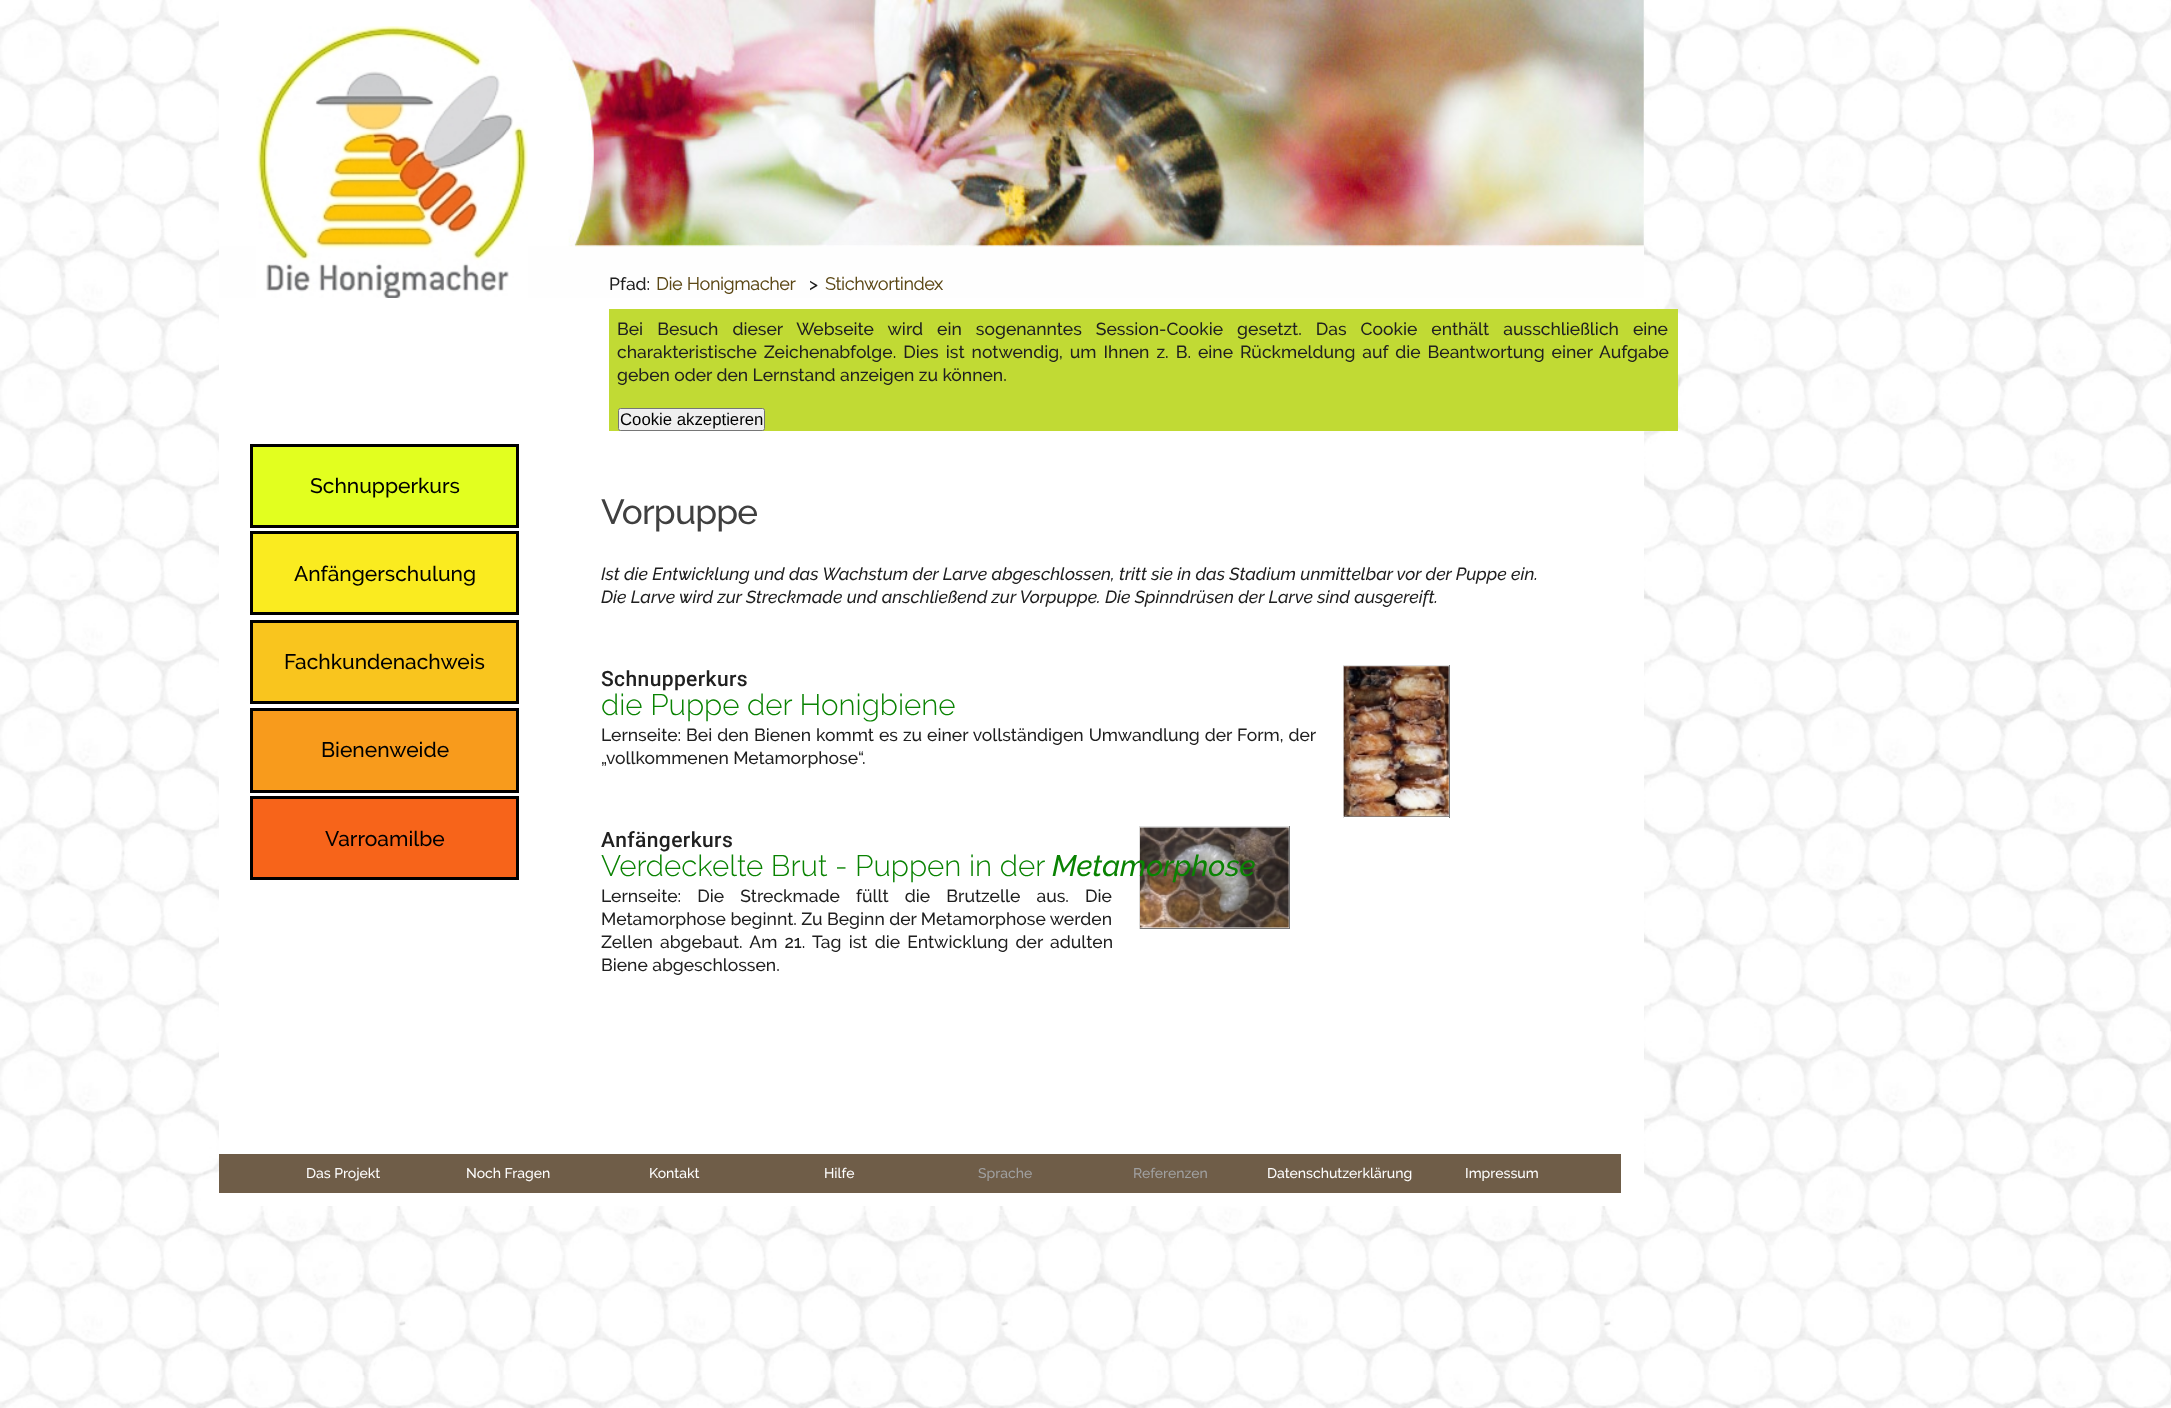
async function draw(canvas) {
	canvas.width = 2171;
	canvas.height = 1408;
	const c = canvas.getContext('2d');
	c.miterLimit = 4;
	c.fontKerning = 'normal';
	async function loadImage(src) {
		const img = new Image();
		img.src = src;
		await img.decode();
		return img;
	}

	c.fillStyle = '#fff';
	c.fillRect(0, 0, 2171, 1408);
	c.drawImage(await loadImage('img1.png'), 0, 0, 2171, 1408);
	c.fillStyle = '#fefefe';
	c.fillRect(219, 0, 1425, 298);
	c.drawImage(await loadImage('img2.png'), 218, 0, 1426, 247);
	c.drawImage(await loadImage('img3.png'), 256, 26, 272, 272);
	c.fillStyle = '#fff';
	c.fillRect(219, 298, 1425, 908);
	c.font = '500 17.5px Raleway';
	c.fillStyle = '#202020';
	c.fillText('Pfad:', 609, 290);
	c.font = 'bold 17.5px Raleway';
	c.fillStyle = '#5c4816';
	c.fillText('Die Honigmacher', 656, 290);
	c.font = '500 17.5px Raleway';
	c.fillStyle = '#202020';
	c.fillText('>', 809, 290);
	c.font = 'bold 17.5px Raleway';
	c.fillStyle = '#5c4816';
	c.fillText('Stichwortindex', 825, 290);
	c.fillStyle = '#c1da34';
	c.fillRect(609, 309, 1069, 122);
	c.wordSpacing = '9.6px';
	c.font = '500 17.5px Raleway';
	c.fillStyle = '#202020';
	c.fillText('Bei Besuch dieser Webseite wird ein sogenanntes Session-Cookie gesetzt. Das Cookie enthält ausschließlich eine', 617, 335);
	c.wordSpacing = '2.6px';
	c.fillText('charakteristische Zeichenabfolge. Dies ist notwendig, um Ihnen z. B. eine Rückmeldung auf die Beantwortung einer Aufgabe', 617, 358);
	c.wordSpacing = '0px';
	c.fillText('geben oder den Lernstand anzeigen zu können.', 617, 381);
	c.fillStyle = '#efefef';
	c.beginPath();
	c.roundRect(618.5, 408.5, 146, 22, 2);
	c.fill();
	c.strokeStyle = '#767676';
	c.stroke();
	c.font = '16.75px Liberation Sans';
	c.fillStyle = '#000';
	c.fillText('Cookie akzeptieren', 620, 425);
	c.fillStyle = '#e2ff1f';
	c.beginPath();
	c.rect(251.5, 445.5, 266, 81);
	c.fill();
	c.strokeStyle = '#000';
	c.lineWidth = 3;
	c.stroke();
	c.font = '500 21px Raleway';
	c.fillStyle = '#000';
	c.fillText('Schnupperkurs', 310, 493);
	c.fillStyle = '#faeb20';
	c.beginPath();
	c.rect(251.5, 532.5, 266, 81);
	c.fill();
	c.stroke();
	c.fillStyle = '#000';
	c.fillText('Anfängerschulung', 294, 581);
	c.fillStyle = '#f9c51e';
	c.beginPath();
	c.rect(251.5, 621.5, 266, 81);
	c.fill();
	c.stroke();
	c.fillStyle = '#000';
	c.fillText('Fachkundenachweis', 284, 669);
	c.fillStyle = '#f89b1c';
	c.beginPath();
	c.rect(251.5, 709.5, 266, 82);
	c.fill();
	c.stroke();
	c.fillStyle = '#000';
	c.fillText('Bienenweide', 321, 757);
	c.fillStyle = '#f7641a';
	c.beginPath();
	c.rect(251.5, 797.5, 266, 81);
	c.fill();
	c.stroke();
	c.fillStyle = '#000';
	c.fillText('Varroamilbe', 325, 846);
	c.letterSpacing = '-0.75px';
	c.font = '500 35px Raleway';
	c.fillStyle = '#404040';
	c.fillText('Vorpuppe', 601, 524);
	c.letterSpacing = '0px';
	c.font = 'italic 500 17.5px Raleway';
	c.fillStyle = '#202020';
	c.fillText('Ist die Entwicklung und das Wachstum der Larve abgeschlossen, tritt sie in das Stadium unmittelbar vor der Puppe ein.', 601, 580);
	c.fillText('Die Larve wird zur Streckmade und anschließend zur Vorpuppe. Die Spinndrüsen der Larve sind ausgereift.', 601, 603);
	c.letterSpacing = '0.4px';
	c.font = '500 21px Roboto';
	c.fillText('Schnupperkurs', 601, 686);
	for (const [x, y, w, h, color] of [
		[1343, 665, 107, 1, '#ddd'],
		[1449, 665, 1, 153, '#777'],
		[1343, 816, 107, 1, '#777'],
		[1343, 665, 1, 153, '#ddd'],
	]) {
		c.fillStyle = color;
		c.fillRect(x, y, w, h);
	}
	c.drawImage(await loadImage('img4.png'), 1343, 666, 106, 151);
	c.letterSpacing = '0px';
	c.font = '300 29.6px Raleway';
	c.fillStyle = '#0a8303';
	c.fillText('die Puppe der Honigbiene', 601, 715);
	c.wordSpacing = '0.6px';
	c.font = '500 17.5px Raleway';
	c.fillStyle = '#202020';
	c.fillText('Lernseite: Bei den Bienen kommt es zu einer vollständigen Umwandlung der Form, der', 601, 741);
	c.wordSpacing = '0px';
	for (const [text, x, y] of [
		['„', 601, 764],
		['vollkommenen Metamorphose“', 606, 764],
		['.', 862, 764],
	]) {
		c.fillText(text, x, y);
	}
	c.letterSpacing = '0.4px';
	c.font = '500 21px Roboto';
	c.fillText('Anfängerkurs', 601, 847);
	for (const [x, y, w, h, color] of [
		[1139, 826, 151, 1, '#ddd'],
		[1289, 826, 1, 103, '#777'],
		[1139, 928, 151, 1, '#777'],
		[1139, 826, 1, 103, '#ddd'],
	]) {
		c.fillStyle = color;
		c.fillRect(x, y, w, h);
	}
	c.drawImage(await loadImage('img5.png'), 1140, 827, 149, 101);
	c.letterSpacing = '0px';
	c.font = '300 29.6px Raleway';
	c.fillStyle = '#0a8303';
	c.fillText('Verdeckelte Brut - Puppen in der', 601, 876);
	c.font = 'italic 500 29.6px Raleway';
	c.fillText('Metamorphose', 1052, 876);
	c.wordSpacing = '11.75px';
	c.font = '500 17.5px Raleway';
	c.fillStyle = '#202020';
	c.fillText('Lernseite: Die Streckmade füllt die Brutzelle aus. Die', 601, 902);
	c.wordSpacing = '0px';
	c.fillText('Metamorphose beginnt. Zu Beginn der Metamorphose werden', 601, 925);
	c.wordSpacing = '2.75px';
	c.fillText('Zellen abgebaut. Am 21. Tag ist die Entwicklung der adulten', 601, 948);
	c.wordSpacing = '0px';
	c.fillText('Biene abgeschlossen.', 601, 971);
	c.fillStyle = '#6f5d48';
	c.fillRect(219, 1154, 1402, 39);
	c.font = '500 14px Raleway';
	c.fillStyle = '#fefefe';
	for (const [text, x, y] of [
		['Das Projekt', 306, 1178],
		['Noch Fragen', 466, 1178],
		['Kontakt', 649, 1178],
		['Hilfe', 824, 1178],
	]) {
		c.fillText(text, x, y);
	}
	c.fillStyle = '#a0a0a0';
	c.fillText('Sprache', 978, 1178);
	c.fillText('Referenzen', 1133, 1178);
	c.fillStyle = '#fefefe';
	c.fillText('Datenschutzerklärung', 1267, 1178);
	c.fillText('Impressum', 1465, 1178);
}

draw(document.querySelector('canvas'));
